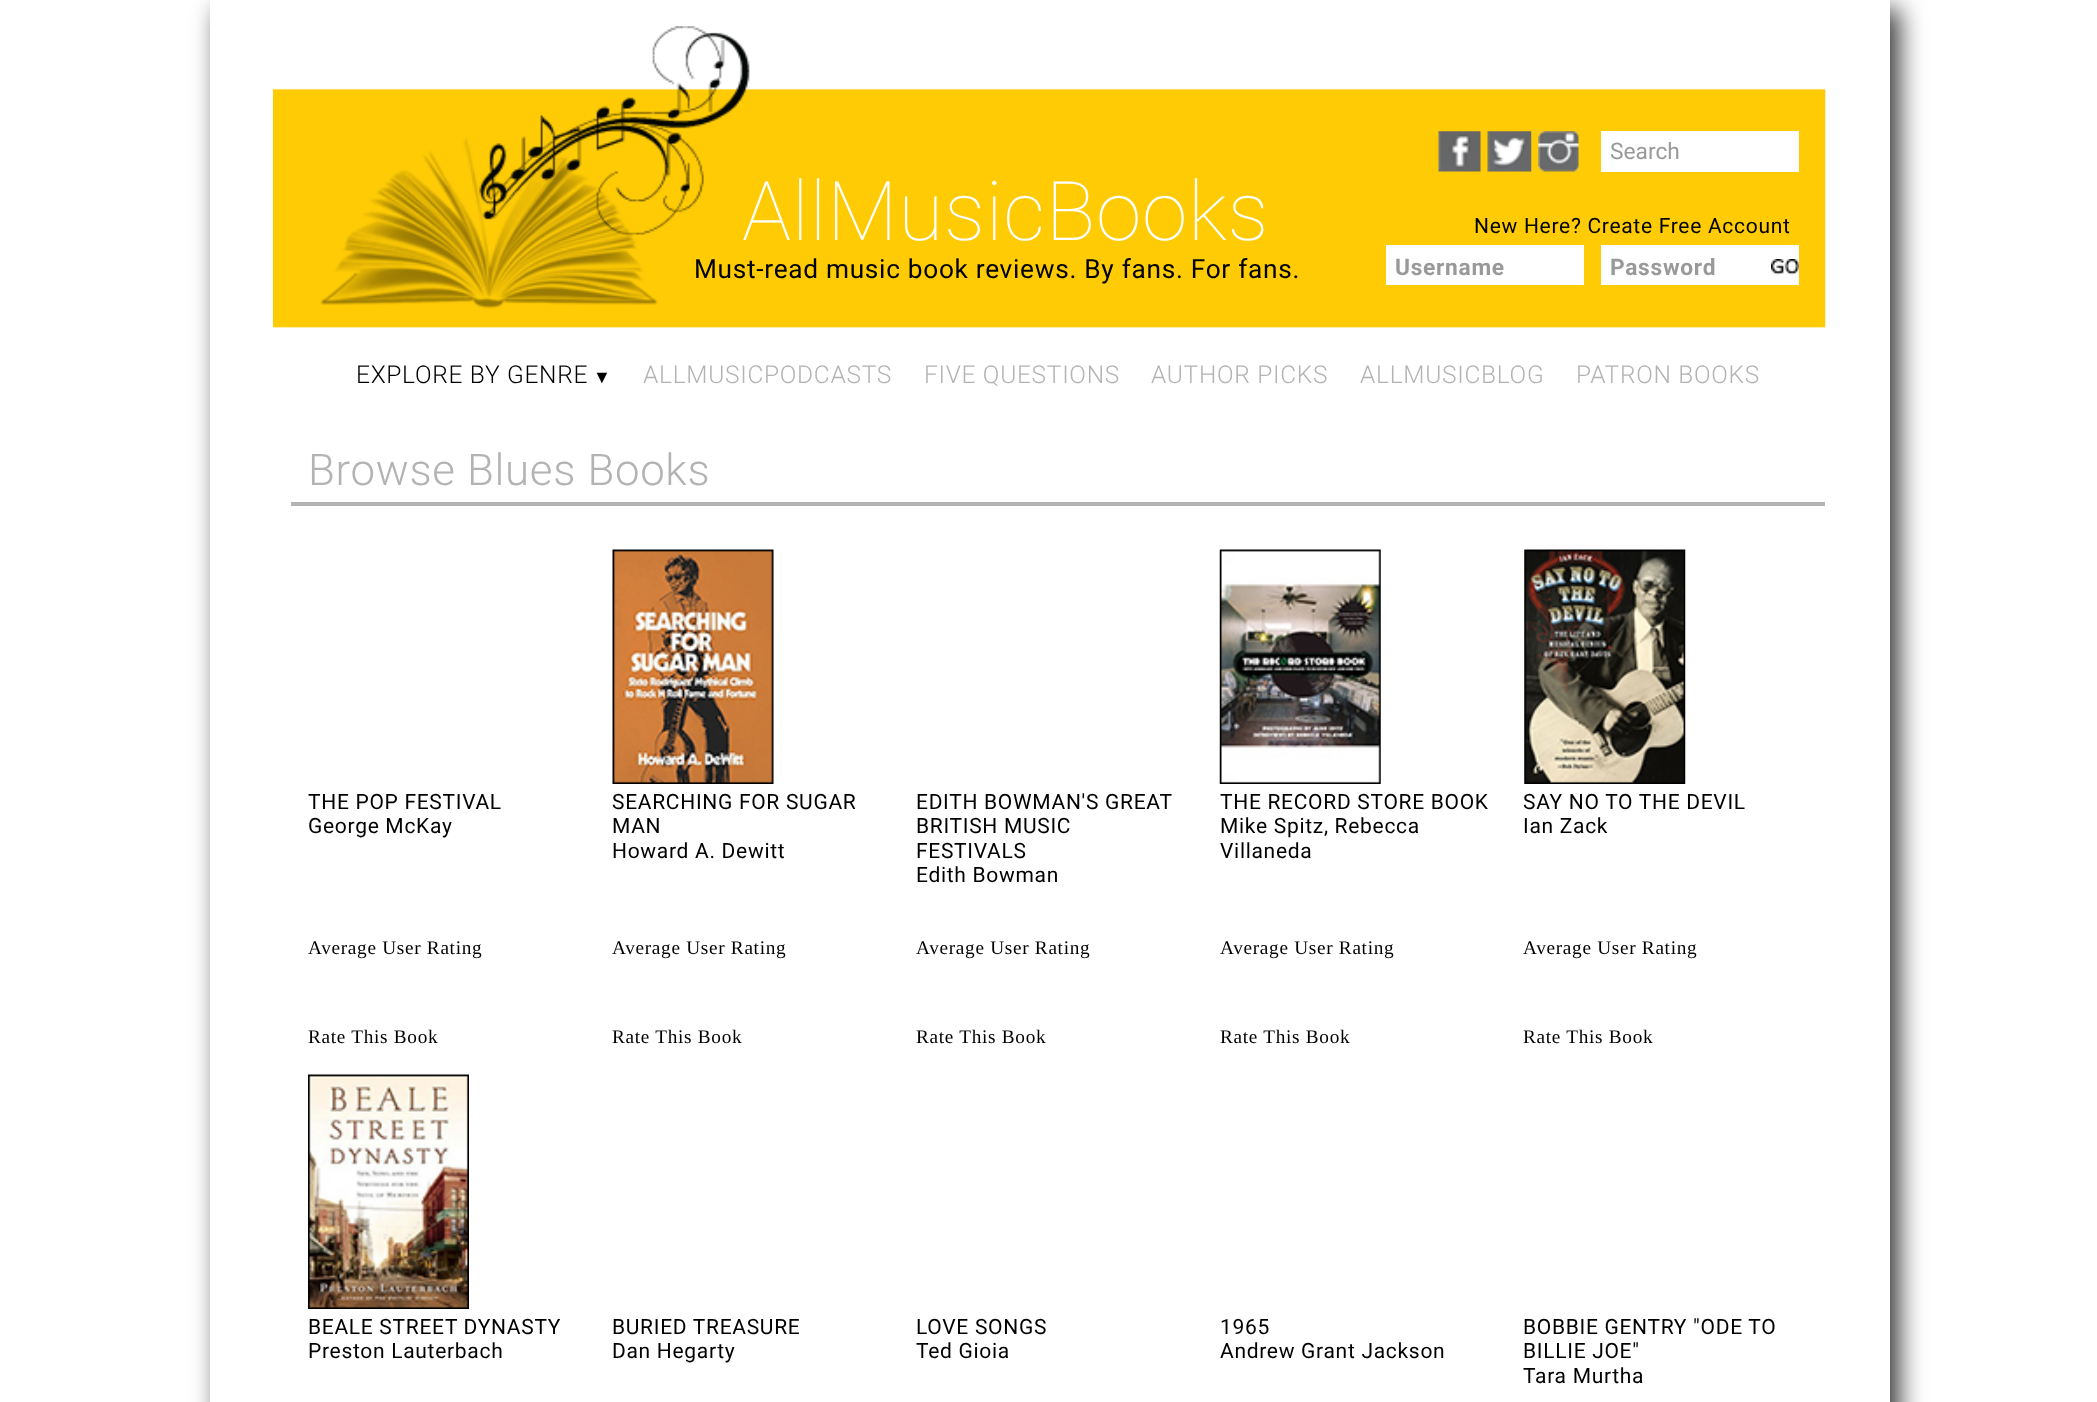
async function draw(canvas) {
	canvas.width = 2097;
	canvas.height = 1402;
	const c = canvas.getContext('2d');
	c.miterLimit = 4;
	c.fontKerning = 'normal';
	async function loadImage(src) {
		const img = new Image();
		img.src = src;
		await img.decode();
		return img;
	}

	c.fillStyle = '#fff';
	c.fillRect(0, 0, 2097, 1402);
	c.save();
	c.beginPath();
	c.moveTo(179, 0);
	c.lineTo(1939, 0);
	c.lineTo(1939, 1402);
	c.lineTo(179, 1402);
	c.closePath();
	c.moveTo(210, 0);
	c.lineTo(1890, 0);
	c.lineTo(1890, 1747);
	c.lineTo(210, 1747);
	c.closePath();
	c.clip('evenodd');
	c.fillStyle = '#333';
	c.filter = 'blur(13px)';
	c.beginPath();
	c.rect(219, 9, 1680, 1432);
	c.fill();
	c.filter = 'none';
	c.restore();
	c.drawImage(await loadImage('img1.png'), 273, 26, 1553, 302);
	c.letterSpacing = '0.7px';
	c.font = '100 82.25px Roboto';
	c.fillText('AllMusicBooks', 742, 240);
	c.font = '26.25px Roboto';
	c.fillStyle = '#000';
	c.fillText('Must-read music book reviews. By fans. For fans.', 694, 278);
	c.drawImage(await loadImage('img2.png'), 1438, 131, 43, 41);
	c.drawImage(await loadImage('img3.png'), 1487, 131, 45, 41);
	c.drawImage(await loadImage('img4.png'), 1538, 131, 41, 41);
	c.fillStyle = '#fff';
	c.fillRect(1601, 131, 198, 41);
	c.letterSpacing = '0px';
	c.font = '22.75px Roboto';
	c.fillStyle = '#999';
	c.fillText('Search', 1610, 159);
	c.letterSpacing = '0.7px';
	c.font = '21px Roboto';
	c.fillStyle = '#000';
	c.fillText('New Here? Create Free Account', 1474, 233);
	c.fillStyle = '#fff';
	c.fillRect(1386, 245, 198, 40);
	c.font = 'bold 22.75px Roboto';
	c.fillStyle = '#999';
	c.fillText('Username', 1395, 275);
	c.fillStyle = '#fff';
	c.fillRect(1601, 245, 198, 40);
	c.fillStyle = '#999';
	c.fillText('Password', 1610, 275);
	c.drawImage(await loadImage('img5.png'), 1771, 259, 28, 16);
	c.font = '300 24.5px Roboto';
	c.fillStyle = '#000';
	c.fillText('EXPLORE BY GENRE', 356, 383);
	c.font = '18px Liberation Sans';
	c.fillText('▼', 593, 383);
	c.font = '300 24.5px Roboto';
	c.fillStyle = '#b3b3b3';
	for (const [text, x, y] of [
		['ALLMUSICPODCASTS', 643, 383],
		['FIVE QUESTIONS', 924, 383],
		['AUTHOR PICKS', 1151, 383],
		['ALLMUSICBLOG', 1360, 383],
		['PATRON BOOKS', 1576, 383],
	]) {
		c.fillText(text, x, y);
	}
	c.fillRect(291, 502, 1534, 4);
	c.font = '300 43.75px Roboto';
	c.fillText('Browse Blues Books', 308, 485);
	c.font = '21px Roboto';
	c.fillStyle = '#000';
	c.fillText('THE POP FESTIVAL', 308, 809);
	c.fillText('George McKay', 308, 833);
	c.font = '19.25px Liberation Serif';
	c.fillText('Average User Rating', 308, 954);
	c.fillText('Rate This Book', 308, 1043);
	c.drawImage(await loadImage('img6.png'), 612, 549, 162, 235);
	c.font = '21px Roboto';
	for (const [text, x, y] of [
		['SEARCHING FOR SUGAR', 612, 809],
		['MAN', 612, 833],
		['Howard A. Dewitt', 612, 858],
	]) {
		c.fillText(text, x, y);
	}
	c.font = '19.25px Liberation Serif';
	c.fillText('Average User Rating', 612, 954);
	c.fillText('Rate This Book', 612, 1043);
	c.font = '21px Roboto';
	for (const [text, x, y] of [
		['EDITH BOWMAN\'S GREAT', 916, 809],
		['BRITISH MUSIC', 916, 833],
		['FESTIVALS', 916, 858],
		['Edith Bowman', 916, 882],
	]) {
		c.fillText(text, x, y);
	}
	c.font = '19.25px Liberation Serif';
	c.fillText('Average User Rating', 916, 954);
	c.fillText('Rate This Book', 916, 1043);
	c.drawImage(await loadImage('img7.png'), 1219, 549, 162, 235);
	c.font = '21px Roboto';
	for (const [text, x, y] of [
		['THE RECORD STORE BOOK', 1220, 809],
		['Mike Spitz, Rebecca', 1220, 833],
		['Villaneda', 1220, 858],
	]) {
		c.fillText(text, x, y);
	}
	c.font = '19.25px Liberation Serif';
	c.fillText('Average User Rating', 1220, 954);
	c.fillText('Rate This Book', 1220, 1043);
	c.drawImage(await loadImage('img8.png'), 1524, 549, 162, 235);
	c.font = '21px Roboto';
	c.fillText('SAY NO TO THE DEVIL', 1523, 809);
	c.fillText('Ian Zack', 1523, 833);
	c.font = '19.25px Liberation Serif';
	c.fillText('Average User Rating', 1523, 954);
	c.fillText('Rate This Book', 1523, 1043);
	c.drawImage(await loadImage('img9.png'), 308, 1074, 161, 235);
	c.font = '21px Roboto';
	for (const [text, x, y] of [
		['BEALE STREET DYNASTY', 308, 1334],
		['Preston Lauterbach', 308, 1358],
		['BURIED TREASURE', 612, 1334],
		['Dan Hegarty', 612, 1358],
		['LOVE SONGS', 916, 1334],
		['Ted Gioia', 916, 1358],
		['1965', 1220, 1334],
		['Andrew Grant Jackson', 1220, 1358],
		['BOBBIE GENTRY "ODE TO', 1523, 1334],
		['BILLIE JOE"', 1523, 1358],
		['Tara Murtha', 1523, 1383],
	]) {
		c.fillText(text, x, y);
	}
}

draw(document.querySelector('canvas'));
